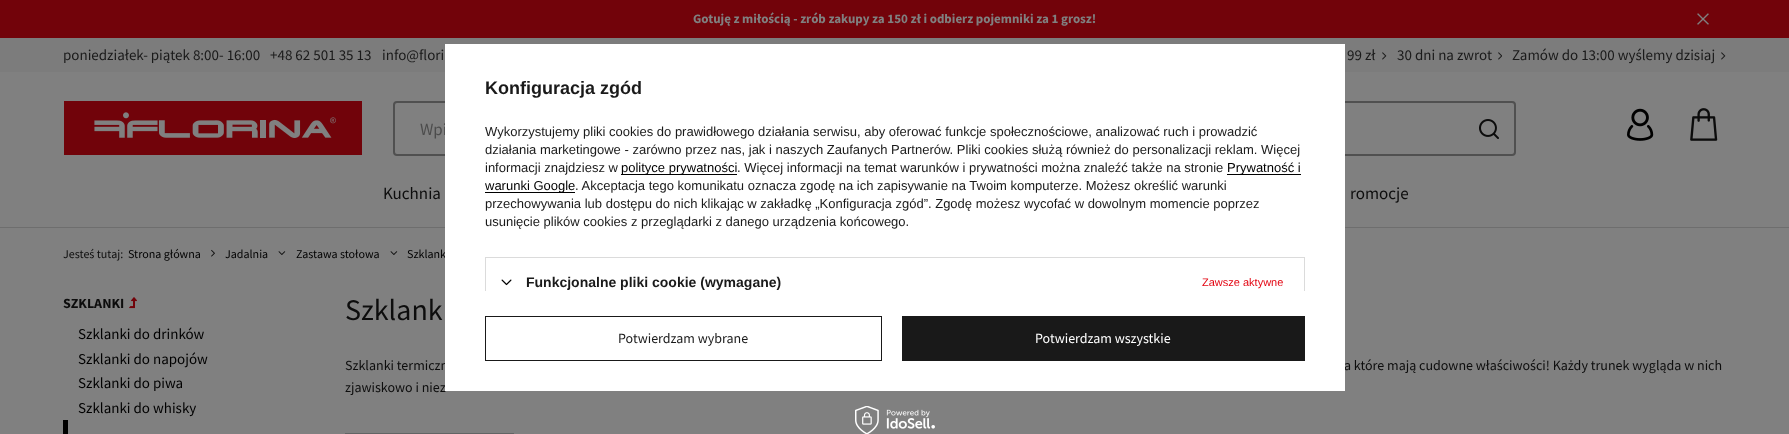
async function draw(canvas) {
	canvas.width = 1789;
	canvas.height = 434;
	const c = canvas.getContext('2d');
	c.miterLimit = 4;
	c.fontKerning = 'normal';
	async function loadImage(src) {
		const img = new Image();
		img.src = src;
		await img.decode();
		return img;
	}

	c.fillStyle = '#808080';
	c.fillRect(0, 0, 1789, 434);
	c.fillStyle = '#72030a';
	c.fillRect(0, 0, 1789, 38);
	c.font = 'bold 13px Source Sans Pro';
	c.fillStyle = '#808080';
	c.fillText('Gotuję z miłością - zrób zakupy za 150 zł i odbierz pojemniki za 1 grosz!', 693, 23);
	c.drawImage(await loadImage('img1.png'), 1697, 13, 12, 12);
	c.fillStyle = '#7c7c7c';
	c.fillRect(0, 38, 1789, 34);
	c.font = '15px Source Sans Pro';
	c.fillStyle = '#1a1a1a';
	for (const [text, x, y] of [
		['poniedziałek- piątek 8:00- 16:00', 63, 60],
		['+48 62 501 35 13', 270, 60],
		['info@flori', 382, 60],
		['99 zł', 1347, 60],
	]) {
		c.fillText(text, x, y);
	}
	c.drawImage(await loadImage('img2.png'), 1382, 52, 5, 8);
	c.fillText('30 dni na zwrot', 1397, 60);
	c.drawImage(await loadImage('img3.png'), 1498, 52, 4, 8);
	c.fillText('Zamów do 13:00 wyślemy dzisiaj', 1512, 60);
	c.drawImage(await loadImage('img2.png'), 1721, 52, 5, 8);
	c.drawImage(await loadImage('img4.png'), 64, 101, 298, 54);
	c.beginPath();
	c.roundRect(394, 102, 1121, 53, 3);
	c.strokeStyle = '#505050';
	c.lineWidth = 2;
	c.stroke();
	c.font = '17px Source Sans Pro';
	c.fillStyle = '#4c4c4c';
	c.fillText('Wpi', 420, 135);
	c.drawImage(await loadImage('img5.png'), 1479, 119, 20, 20);
	c.drawImage(await loadImage('img6.png'), 1627, 108, 27, 33);
	c.drawImage(await loadImage('img7.png'), 1690, 108, 28, 33);
	c.fillStyle = '#0d0d0d';
	c.fillText('Kuchnia', 383, 199);
	c.fillText('romocje', 1350, 199);
	c.fillStyle = '#6e6e6e';
	c.fillRect(0, 227, 1789, 1);
	c.font = '12px Source Sans Pro';
	c.fillStyle = '#0d0d0d';
	c.fillText('Jesteś tutaj:', 63, 258);
	c.fillStyle = '#000';
	c.fillText('Strona główna', 128, 258);
	c.drawImage(await loadImage('img8.png'), 211, 249, 4, 8);
	c.fillText('Jadalnia', 225, 258);
	c.drawImage(await loadImage('img9.png'), 278, 251, 8, 4);
	c.fillText('Zastawa stołowa', 296, 258);
	c.drawImage(await loadImage('img9.png'), 390, 251, 8, 4);
	c.fillText('Szklank', 407, 258);
	c.font = 'bold 14px Source Sans Pro';
	c.fillStyle = '#0d0d0d';
	c.fillText('SZKLANKI', 63, 308);
	c.drawImage(await loadImage('img10.png'), 129, 297, 8, 12);
	c.font = '15px Source Sans Pro';
	c.fillStyle = '#000';
	for (const [text, x, y] of [
		['Szklanki do drinków', 78, 339],
		['Szklanki do napojów', 78, 364],
		['Szklanki do piwa', 78, 388],
		['Szklanki do whisky', 78, 413],
	]) {
		c.fillText(text, x, y);
	}
	c.fillRect(63, 420, 5, 14);
	c.font = '30px Source Sans Pro';
	c.fillStyle = '#0d0d0d';
	c.fillText('Szklank', 345, 320);
	c.font = '14px Source Sans Pro';
	for (const [text, x, y] of [
		['Szklanki termiczn', 345, 370],
		['a które mają cudowne właściwości! Każdy trunek wygląda w nich', 1344, 370],
		['zjawiskowo i niez', 345, 392],
	]) {
		c.fillText(text, x, y);
	}
	c.strokeStyle = '#626464';
	c.lineWidth = 1;
	c.strokeRect(345.5, 433.5, 168, 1);
	c.fillStyle = '#fff';
	c.fillRect(445, 44, 900, 347);
	c.font = 'bold 18px Liberation Sans';
	c.fillStyle = '#1a1a1a';
	c.fillText('Konfiguracja zgód', 485, 94);
	c.font = '13px Liberation Sans';
	for (const [text, x, y] of [
		['Wykorzystujemy pliki cookies do prawidłowego działania serwisu, aby oferować funkcje społecznościowe, analizować ruch i prowadzić', 485, 136],
		['działania marketingowe - zarówno przez nas, jak i naszych Zaufanych Partnerów. Pliki cookies służą również do personalizacji reklam. Więcej', 485, 154],
		['informacji znajdziesz w', 485, 172],
	]) {
		c.fillText(text, x, y);
	}
	c.fillStyle = '#000';
	c.fillRect(621, 174, 116, 1);
	c.fillText('polityce prywatności', 621, 172);
	c.fillStyle = '#1a1a1a';
	c.fillText('. Więcej informacji na temat warunków i prywatności można znaleźć także na stronie', 737, 172);
	c.fillStyle = '#000';
	c.fillRect(1227, 174, 74, 1);
	c.fillText('Prywatność i', 1227, 172);
	c.fillRect(485, 192, 90, 1);
	c.fillText('warunki Google', 485, 190);
	c.fillStyle = '#1a1a1a';
	for (const [text, x, y] of [
		['. Akceptacja tego komunikatu oznacza zgodę na ich zapisywanie na Twoim komputerze. Możesz określić warunki', 575, 190],
		['przechowywania lub dostępu do nich klikając w zakładkę „Konfiguracja zgód”. Zgodę możesz wycofać w dowolnym momencie poprzez', 485, 208],
		['usunięcie plików cookies z przeglądarki z danego urządzenia końcowego.', 485, 226],
	]) {
		c.fillText(text, x, y);
	}
	for (const [x, y, w, h, color] of [
		[485, 257, 820, 1, '#dbdbdb'],
		[1304, 257, 1, 34, '#dbdbdb'],
		[485, 257, 1, 34, '#dbdbdb'],
	]) {
		c.fillStyle = color;
		c.fillRect(x, y, w, h);
	}
	c.drawImage(await loadImage('img11.png'), 501, 279, 11, 7);
	c.font = 'bold 14px Liberation Sans';
	c.fillStyle = '#1a1a1a';
	c.fillText('Funkcjonalne pliki cookie (wymagane)', 526, 287);
	c.font = '11px Liberation Sans';
	c.fillStyle = '#e30613';
	c.fillText('Zawsze aktywne', 1202, 286);
	c.strokeStyle = '#191919';
	c.strokeRect(485.5, 316.5, 396, 44);
	c.font = '14px Source Sans Pro';
	c.fillStyle = '#1a1a1a';
	c.fillText('Potwierdzam wybrane', 618, 343);
	c.fillStyle = '#191919';
	c.fillRect(902, 316, 403, 45);
	c.fillStyle = '#fff';
	c.fillText('Potwierdzam wszystkie', 1035, 343);
	c.drawImage(await loadImage('img12.png'), 855, 406, 80, 28);
}

draw(document.querySelector('canvas'));
